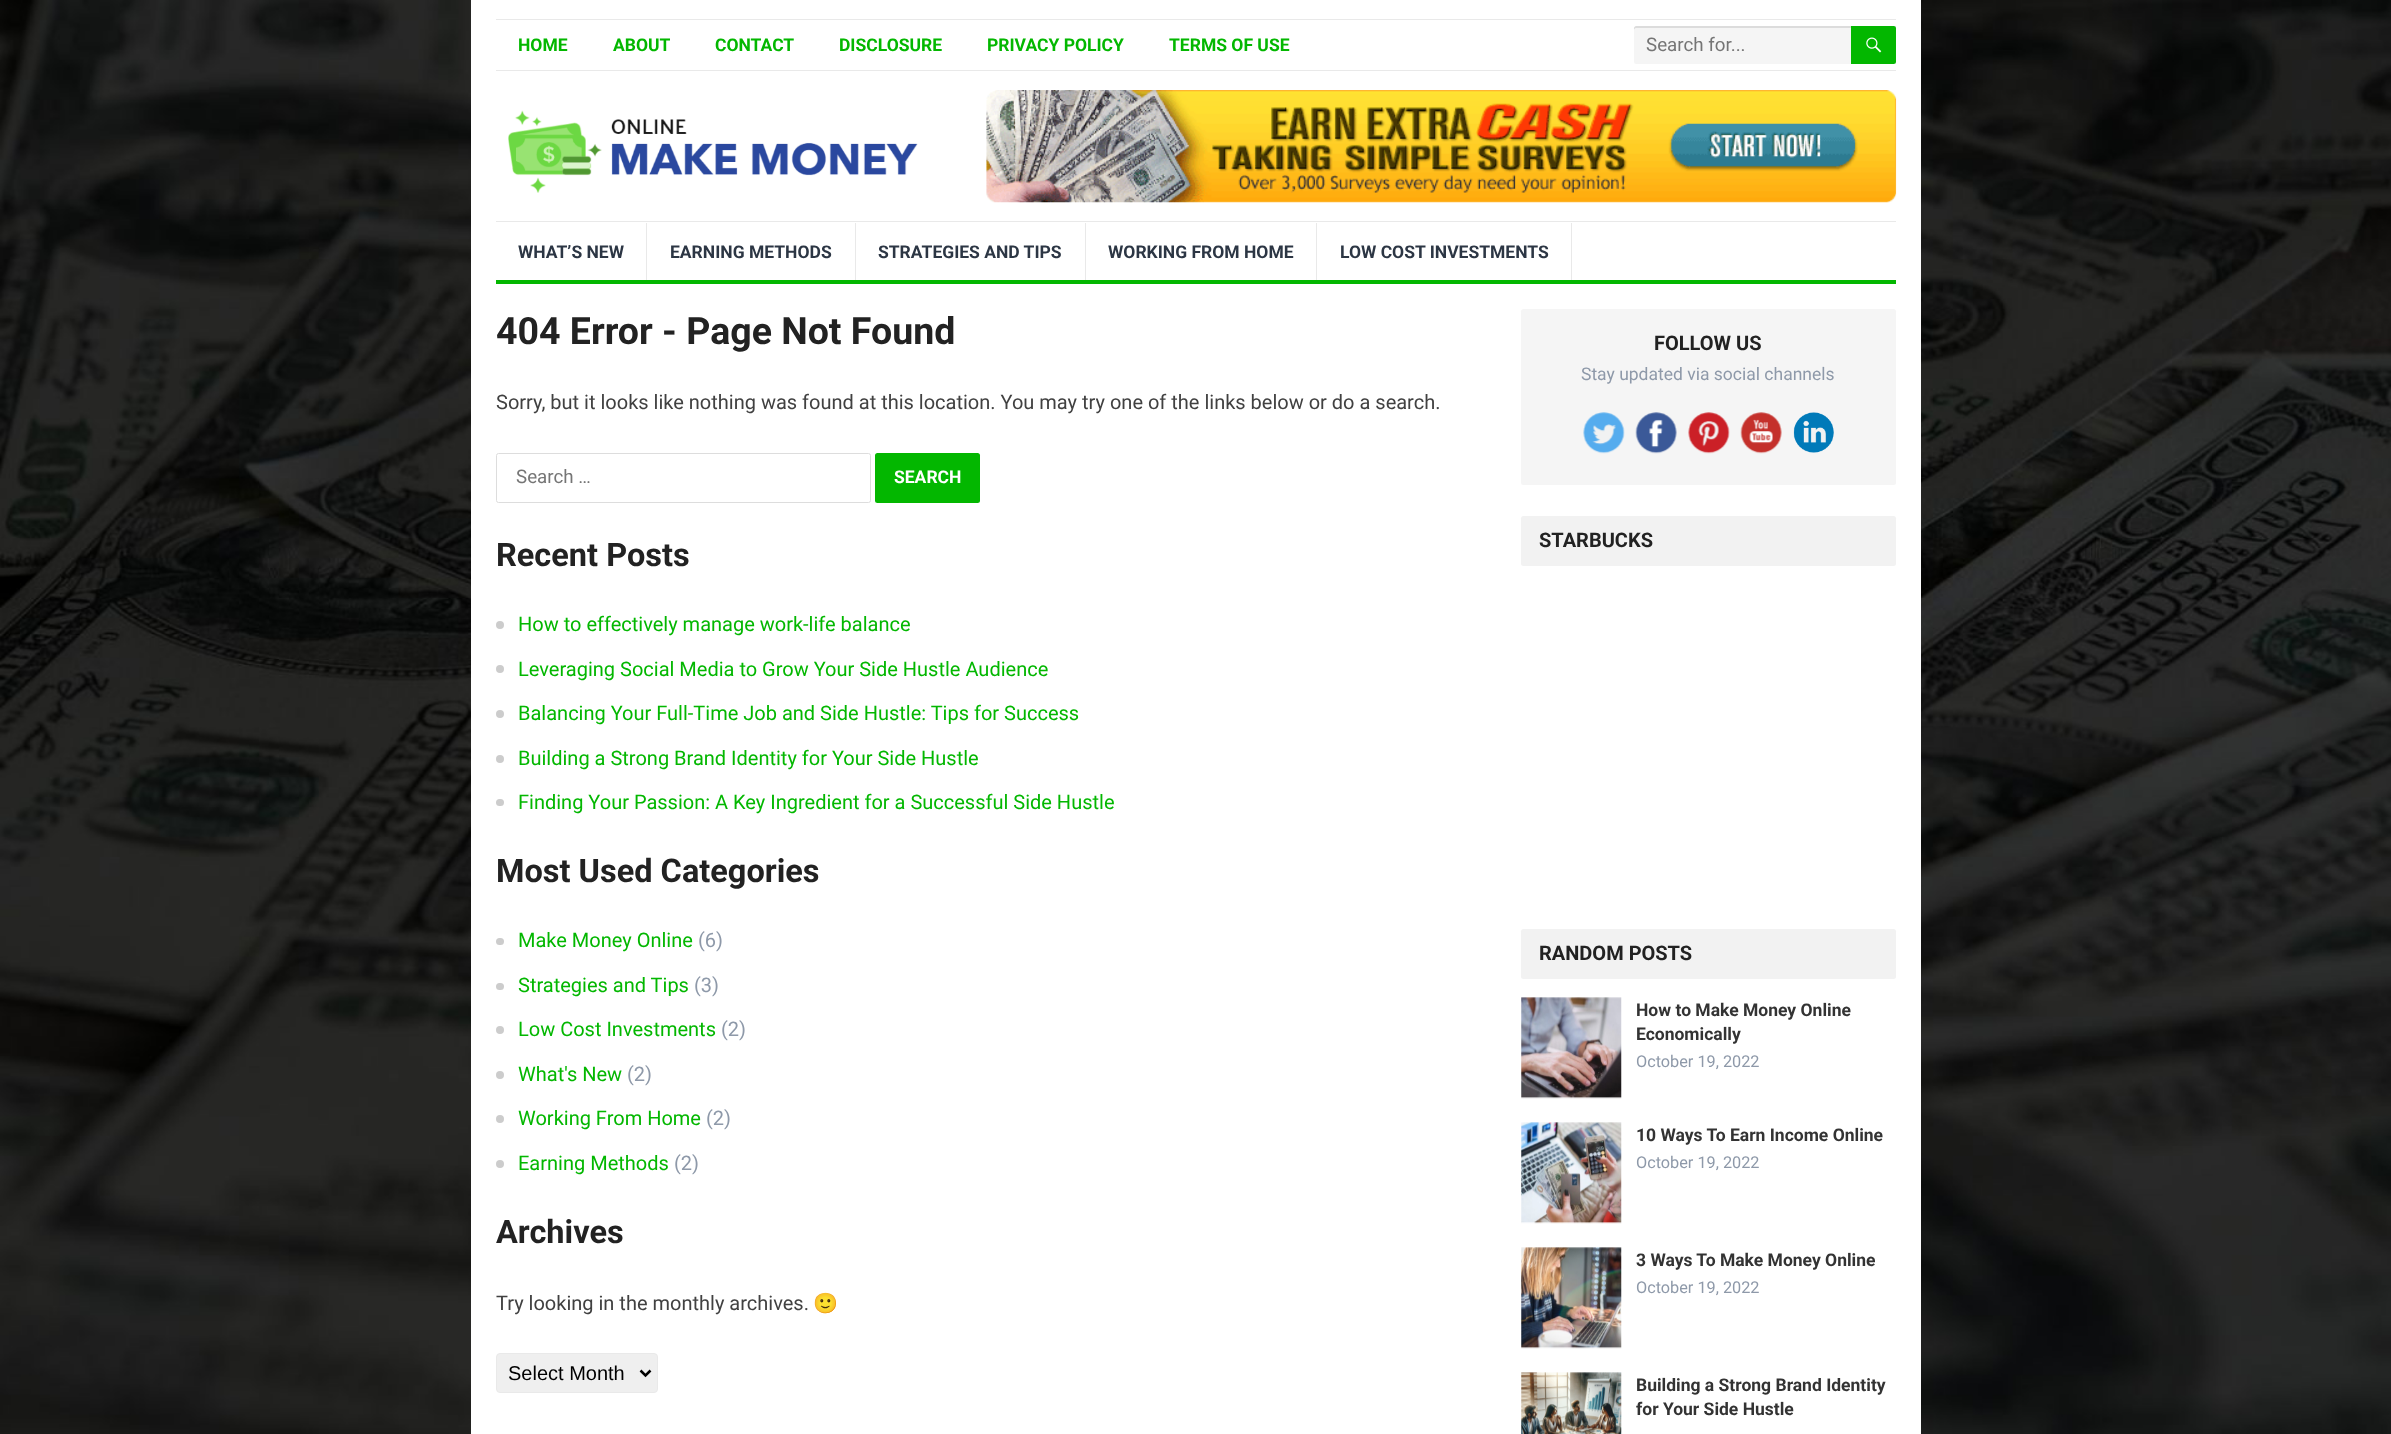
async function draw(canvas) {
	canvas.width = 2391;
	canvas.height = 1434;
	const c = canvas.getContext('2d');
	c.miterLimit = 4;
	c.fontKerning = 'normal';
	async function loadImage(src) {
		const img = new Image();
		img.src = src;
		await img.decode();
		return img;
	}

	c.fillStyle = '#fff';
	c.fillRect(0, 0, 2391, 1434);
	c.drawImage(await loadImage('img1.png'), 0, 0, 2391, 1434);
	for (const [x, y, w, h, color] of [
		[471, 0, 1450, 1434, '#fff'],
		[496, 19, 1400, 1, '#e9e9e9'],
		[496, 70, 1400, 1, '#e9e9e9'],
	]) {
		c.fillStyle = color;
		c.fillRect(x, y, w, h);
	}
	c.font = 'bold 17.5px Roboto';
	c.fillStyle = '#03b700';
	for (const [text, x, y] of [
		['HOME', 518, 51],
		['ABOUT', 613, 51],
		['CONTACT', 715, 51],
		['DISCLOSURE', 839, 51],
		['PRIVACY POLICY', 987, 51],
		['TERMS OF USE', 1169, 51],
	]) {
		c.fillText(text, x, y);
	}
	c.fillStyle = '#f5f5f5';
	c.beginPath();
	c.roundRect(1634, 26, 262, 38, [2.5, 0, 0, 2.5]);
	c.fill();
	c.fillStyle = '#0000001a';
	c.beginPath();
	c.moveTo(1636, 28);
	c.lineTo(1896, 28);
	c.lineTo(1896, 26);
	c.lineTo(1636, 26);
	c.bezierCurveTo(1635, 26, 1634, 27, 1634, 28);
	c.lineTo(1634, 30);
	c.bezierCurveTo(1634, 29, 1635, 28, 1636, 28);
	c.closePath();
	c.fill();
	c.font = '18.75px Roboto';
	c.fillStyle = '#757575';
	c.fillText('Search for...', 1646, 51);
	c.fillStyle = '#03b700';
	c.beginPath();
	c.roundRect(1851, 26, 45, 38, [0, 2.5, 2.5, 0]);
	c.fill();
	c.drawImage(await loadImage('img2.png'), 1866, 37, 16, 16);
	c.drawImage(await loadImage('img3.png'), 508, 110, 410, 83);
	c.drawImage(await loadImage('img4.png'), 986, 90, 911, 113);
	for (const [x, y, w, h, color] of [
		[496, 221, 1400, 1, '#e9e9e9'],
		[496, 280, 1400, 4, '#03b700'],
		[646, 223, 1, 57, '#e9e9e9'],
	]) {
		c.fillStyle = color;
		c.fillRect(x, y, w, h);
	}
	c.font = 'bold 17.5px Roboto';
	c.fillStyle = '#2c3644';
	c.fillText('WHAT’S NEW', 518, 258);
	c.fillStyle = '#e9e9e9';
	c.fillRect(855, 223, 1, 57);
	c.fillStyle = '#2c3644';
	c.fillText('EARNING METHODS', 670, 258);
	c.fillStyle = '#e9e9e9';
	c.fillRect(1085, 223, 1, 57);
	c.fillStyle = '#2c3644';
	c.fillText('STRATEGIES AND TIPS', 878, 258);
	c.fillStyle = '#e9e9e9';
	c.fillRect(1316, 223, 1, 57);
	c.fillStyle = '#2c3644';
	c.fillText('WORKING FROM HOME', 1108, 258);
	c.fillStyle = '#e9e9e9';
	c.fillRect(1571, 223, 1, 57);
	c.fillStyle = '#2c3644';
	c.fillText('LOW COST INVESTMENTS', 1340, 258);
	c.font = 'bold 37.5px Roboto';
	c.fillStyle = '#222';
	c.fillText('404 Error - Page Not Found', 496, 344);
	c.font = '20px Roboto';
	c.fillStyle = '#414141';
	c.fillText('Sorry, but it looks like nothing was found at this location. You may try one of the links below or do a search.', 496, 409);
	c.beginPath();
	c.roundRect(496.5, 453.5, 374, 49, 2);
	c.strokeStyle = '#ddd';
	c.stroke();
	c.font = '18.75px Roboto';
	c.fillStyle = '#757575';
	c.fillText('Search …', 516, 483);
	c.fillStyle = '#03b700';
	c.beginPath();
	c.roundRect(875, 453, 105, 50, 2.5);
	c.fill();
	c.font = 'bold 17.5px Roboto';
	c.fillStyle = '#fff';
	c.fillText('SEARCH', 894, 483);
	c.font = 'bold 32.5px Roboto';
	c.fillStyle = '#222';
	c.fillText('Recent Posts', 496, 566);
	c.fillStyle = '#ccc';
	c.beginPath();
	c.arc(500, 625, 4, 0, 2 * Math.PI);
	c.fill();
	c.font = '20px Roboto';
	c.fillStyle = '#03b700';
	c.fillText('How to effectively manage work-life balance', 518, 631);
	c.fillStyle = '#ccc';
	c.beginPath();
	c.arc(500, 669, 4, 0, 2 * Math.PI);
	c.fill();
	c.fillStyle = '#03b700';
	c.fillText('Leveraging Social Media to Grow Your Side Hustle Audience', 518, 676);
	c.fillStyle = '#ccc';
	c.beginPath();
	c.arc(500, 714, 4, 0, 2 * Math.PI);
	c.fill();
	c.fillStyle = '#03b700';
	c.fillText('Balancing Your Full-Time Job and Side Hustle: Tips for Success', 518, 720);
	c.fillStyle = '#ccc';
	c.beginPath();
	c.arc(500, 759, 4, 0, 2 * Math.PI);
	c.fill();
	c.fillStyle = '#03b700';
	c.fillText('Building a Strong Brand Identity for Your Side Hustle', 518, 765);
	c.fillStyle = '#ccc';
	c.beginPath();
	c.roundRect(496, 799, 8, 7, 3.5);
	c.fill();
	c.fillStyle = '#03b700';
	c.fillText('Finding Your Passion: A Key Ingredient for a Successful Side Hustle', 518, 809);
	c.font = 'bold 32.5px Roboto';
	c.fillStyle = '#222';
	c.fillText('Most Used Categories', 496, 882);
	c.fillStyle = '#ccc';
	c.beginPath();
	c.roundRect(496, 938, 8, 7, 3.5);
	c.fill();
	c.font = '20px Roboto';
	c.fillStyle = '#03b700';
	c.fillText('Make Money Online', 518, 947);
	c.fillStyle = '#8e99a9';
	c.fillText('(6)', 698, 947);
	c.fillStyle = '#ccc';
	c.beginPath();
	c.roundRect(496, 983, 8, 7, 3.5);
	c.fill();
	c.fillStyle = '#03b700';
	c.fillText('Strategies and Tips', 518, 992);
	c.fillStyle = '#8e99a9';
	c.fillText('(3)', 694, 992);
	c.fillStyle = '#ccc';
	c.beginPath();
	c.arc(500, 1030, 4, 0, 2 * Math.PI);
	c.fill();
	c.fillStyle = '#03b700';
	c.fillText('Low Cost Investments', 518, 1036);
	c.fillStyle = '#8e99a9';
	c.fillText('(2)', 721, 1036);
	c.fillStyle = '#ccc';
	c.beginPath();
	c.arc(500, 1075, 4, 0, 2 * Math.PI);
	c.fill();
	c.fillStyle = '#03b700';
	c.fillText('What\'s New', 518, 1081);
	c.fillStyle = '#8e99a9';
	c.fillText('(2)', 627, 1081);
	c.fillStyle = '#ccc';
	c.beginPath();
	c.arc(500, 1119, 4, 0, 2 * Math.PI);
	c.fill();
	c.fillStyle = '#03b700';
	c.fillText('Working From Home', 518, 1125);
	c.fillStyle = '#8e99a9';
	c.fillText('(2)', 706, 1125);
	c.fillStyle = '#ccc';
	c.beginPath();
	c.arc(500, 1164, 4, 0, 2 * Math.PI);
	c.fill();
	c.fillStyle = '#03b700';
	c.fillText('Earning Methods', 518, 1170);
	c.fillStyle = '#8e99a9';
	c.fillText('(2)', 674, 1170);
	c.font = 'bold 32.5px Roboto';
	c.fillStyle = '#222';
	c.fillText('Archives', 496, 1243);
	c.font = '20px Roboto';
	c.fillStyle = '#414141';
	c.fillText('Try looking in the monthly archives.', 496, 1310);
	c.font = '20px Noto Color Emoji';
	c.fillText('🙂', 813, 1310);
	c.fillStyle = '#efefef';
	c.beginPath();
	c.roundRect(496.5, 1353.5, 161, 39, 3.5);
	c.fill();
	c.strokeStyle = '#e9e9e9';
	c.stroke();
	c.beginPath();
	c.moveTo(640.5, 1370.5);
	c.lineTo(645.5, 1375.5);
	c.lineTo(650.5, 1370.5);
	c.strokeStyle = '#000';
	c.lineWidth = 2.5;
	c.stroke();
	c.font = '20px Liberation Sans';
	c.fillStyle = '#000';
	c.fillText('Select Month', 508, 1380);
	c.fillStyle = '#f5f5f5';
	c.beginPath();
	c.roundRect(1521, 309, 375, 176, 2.5);
	c.fill();
	c.font = 'bold 20px Roboto';
	c.fillStyle = '#222';
	c.fillText('FOLLOW US', 1654, 350);
	c.font = '17.5px Roboto';
	c.fillStyle = '#8e99a9';
	c.fillText('Stay updated via social channels', 1581, 380);
	c.drawImage(await loadImage('img5.png'), 1583, 412, 42, 42);
	c.drawImage(await loadImage('img6.png'), 1635, 412, 42, 42);
	c.drawImage(await loadImage('img7.png'), 1688, 412, 42, 42);
	c.drawImage(await loadImage('img8.png'), 1740, 412, 42, 42);
	c.drawImage(await loadImage('img9.png'), 1793, 412, 41, 41);
	c.fillStyle = '#f2f2f2';
	c.beginPath();
	c.roundRect(1521, 516, 375, 50, 2.5);
	c.fill();
	c.font = 'bold 20px Roboto';
	c.fillStyle = '#222';
	c.fillText('STARBUCKS', 1539, 547);
	c.fillStyle = '#f2f2f2';
	c.beginPath();
	c.roundRect(1521, 929, 375, 50, 2.5);
	c.fill();
	c.fillStyle = '#222';
	c.fillText('RANDOM POSTS', 1539, 960);
	c.drawImage(await loadImage('img10.png'), 1521, 997, 101, 102);
	c.font = 'bold 17.5px Roboto';
	c.fillStyle = '#333';
	c.fillText('How to Make Money Online', 1636, 1016);
	c.fillText('Economically', 1636, 1040);
	c.font = '16.25px Roboto';
	c.fillStyle = '#8e99a9';
	c.fillText('October 19, 2022', 1636, 1067);
	c.drawImage(await loadImage('img11.png'), 1521, 1122, 101, 102);
	c.font = 'bold 17.5px Roboto';
	c.fillStyle = '#333';
	c.fillText('10 Ways To Earn Income Online', 1636, 1141);
	c.font = '16.25px Roboto';
	c.fillStyle = '#8e99a9';
	c.fillText('October 19, 2022', 1636, 1168);
	c.drawImage(await loadImage('img12.png'), 1521, 1247, 101, 102);
	c.font = 'bold 17.5px Roboto';
	c.fillStyle = '#333';
	c.fillText('3 Ways To Make Money Online', 1636, 1266);
	c.font = '16.25px Roboto';
	c.fillStyle = '#8e99a9';
	c.fillText('October 19, 2022', 1636, 1293);
	c.drawImage(await loadImage('img13.png'), 1521, 1372, 101, 62);
	c.font = 'bold 17.5px Roboto';
	c.fillStyle = '#333';
	c.fillText('Building a Strong Brand Identity', 1636, 1391);
	c.fillText('for Your Side Hustle', 1636, 1415);
}

draw(document.querySelector('canvas'));
